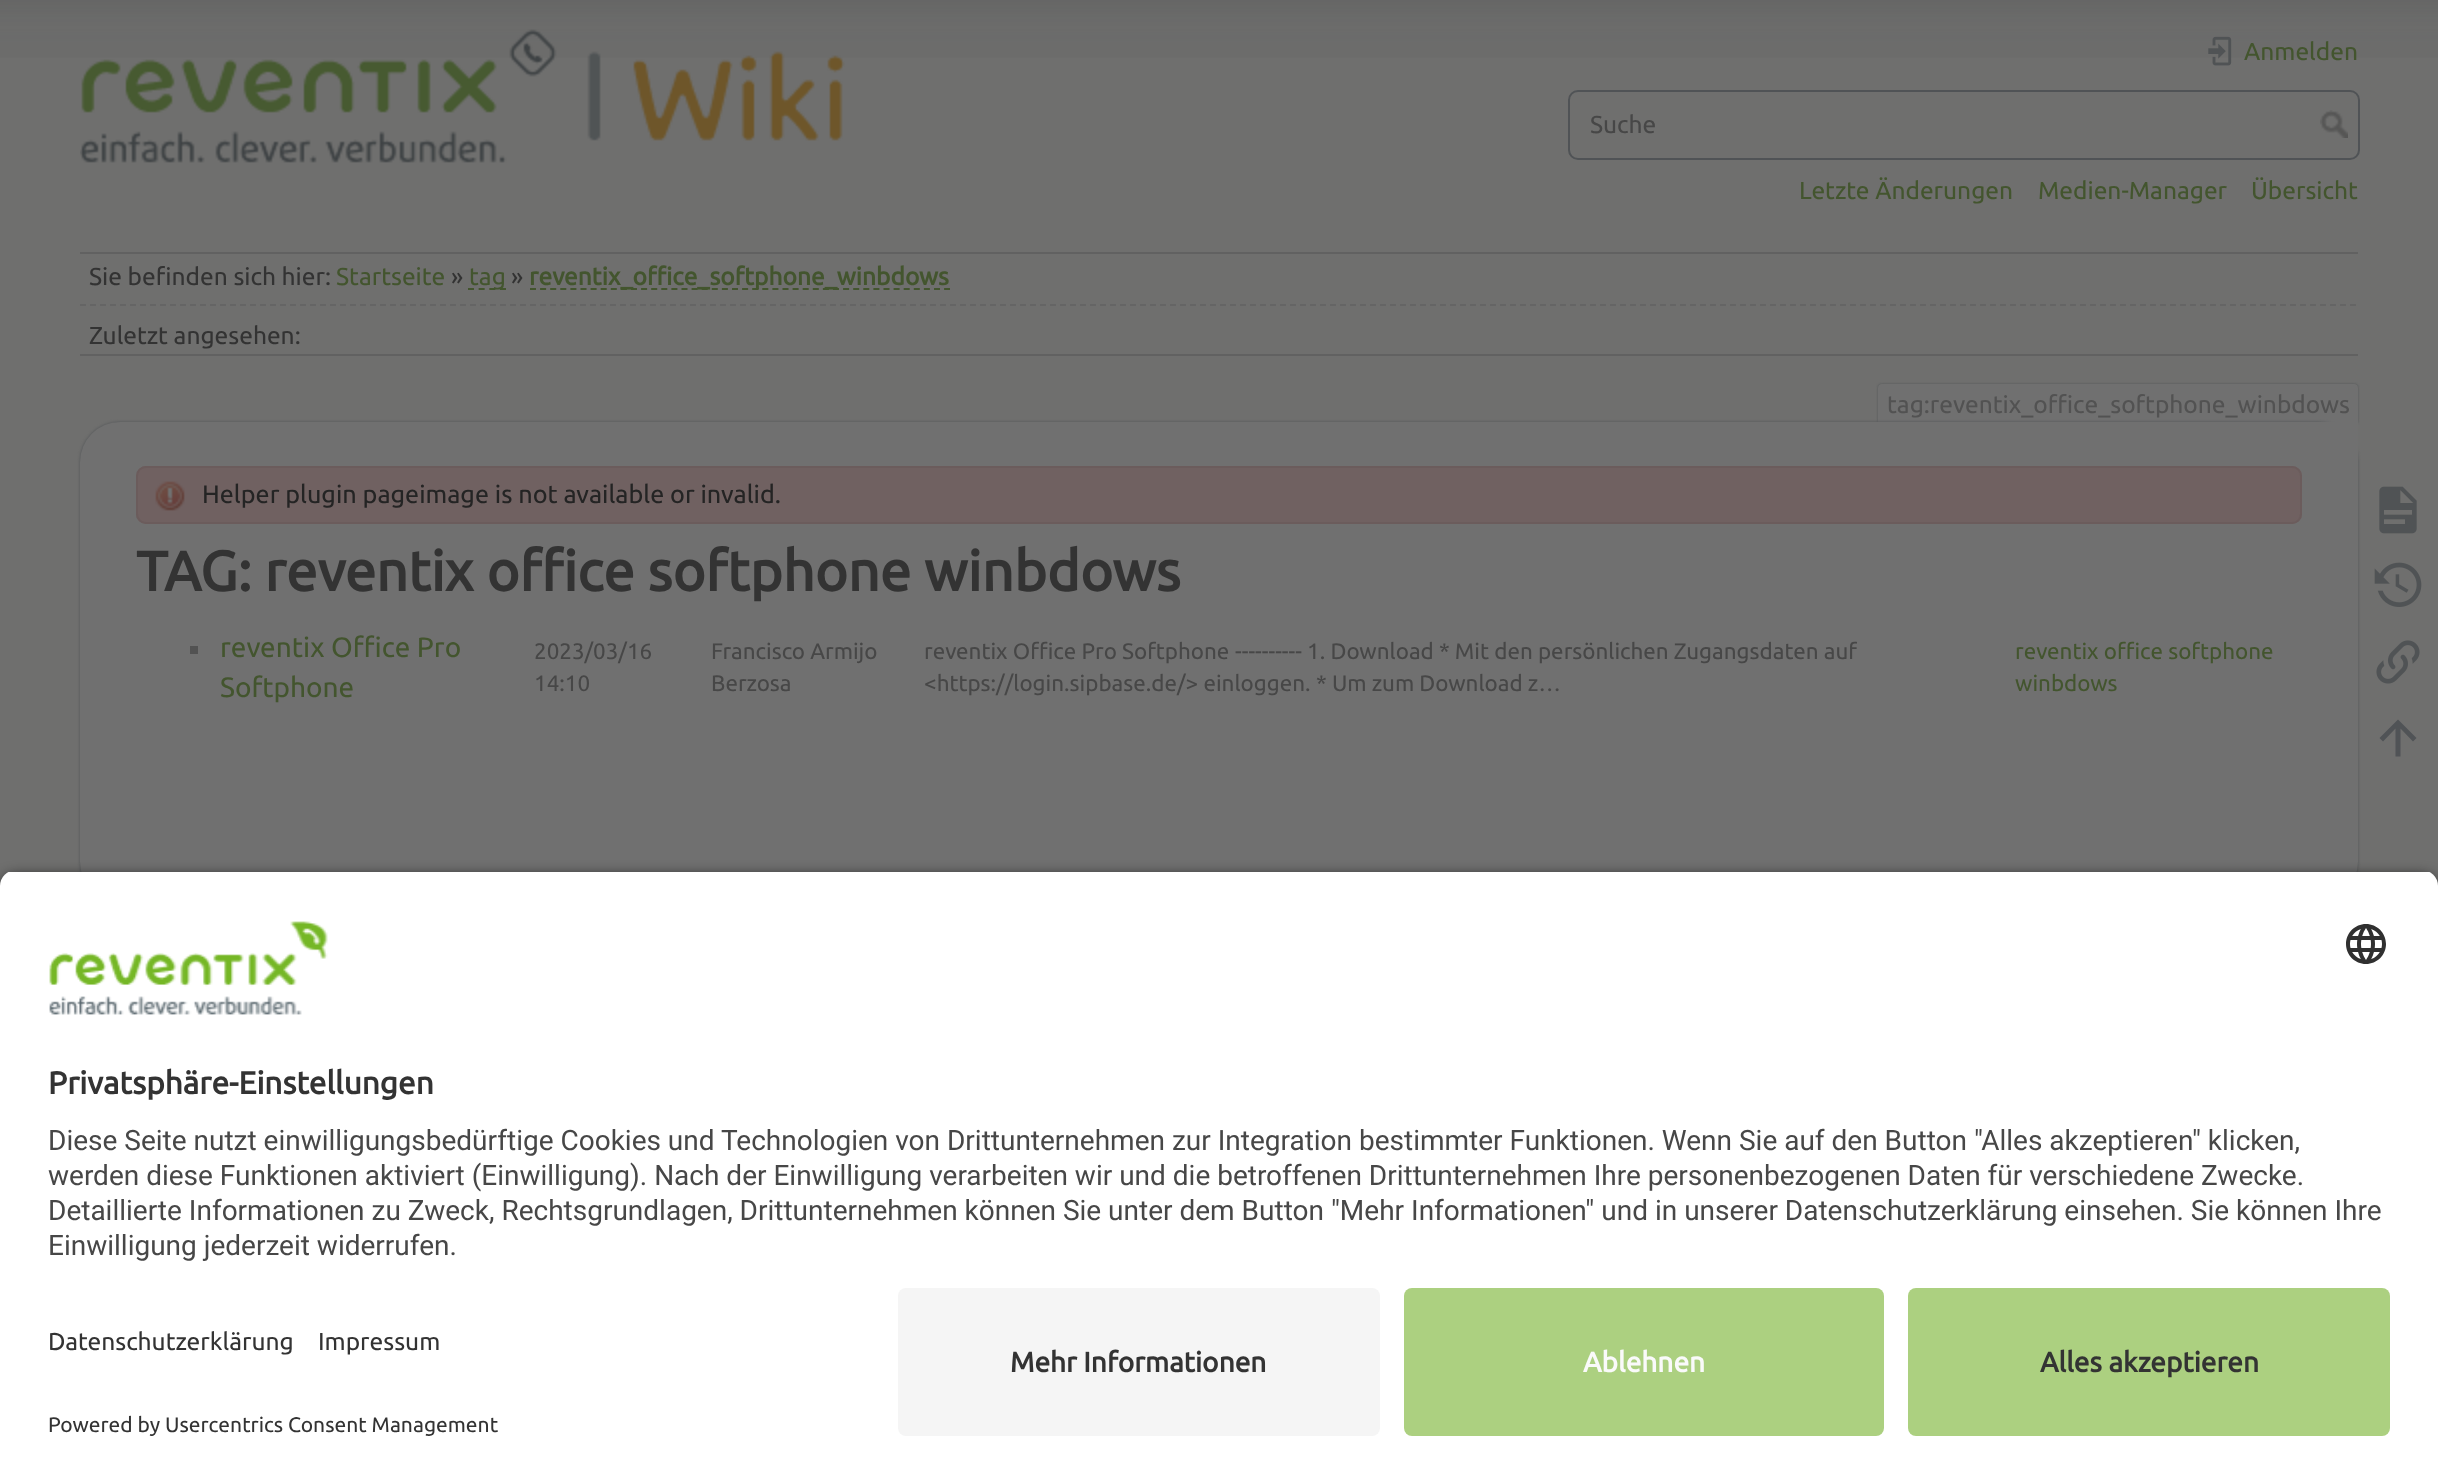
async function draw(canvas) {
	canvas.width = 2438;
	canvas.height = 1484;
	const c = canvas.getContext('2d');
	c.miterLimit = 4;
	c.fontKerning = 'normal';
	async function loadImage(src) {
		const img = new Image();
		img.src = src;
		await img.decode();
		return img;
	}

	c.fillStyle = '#6f6f6e';
	c.fillRect(0, 0, 2438, 1484);
	c.drawImage(await loadImage('img1.png'), 0, 0, 2438, 58);
	c.drawImage(await loadImage('img2.png'), 80, 29, 765, 134);
	c.drawImage(await loadImage('img3.png'), 2208, 36, 24, 30);
	c.font = '24.5px Ubuntu';
	c.fillStyle = '#43552e';
	c.fillText('Anmelden', 2244, 60);
	c.beginPath();
	c.roundRect(1569, 91, 790, 68, 9);
	c.strokeStyle = '#505356';
	c.lineWidth = 2;
	c.stroke();
	c.fillStyle = '#474747';
	c.fillText('Suche', 1590, 133);
	c.drawImage(await loadImage('img4.png'), 2320, 110, 28, 28);
	c.fillStyle = '#43552e';
	for (const [text, x, y] of [
		['Letzte Änderungen', 1799, 199],
		['Medien-Manager', 2038, 199],
		['Übersicht', 2251, 199],
	]) {
		c.fillText(text, x, y);
	}
	c.fillStyle = '#616161';
	c.fillRect(80, 252, 2278, 2);
	c.beginPath();
	c.moveTo(80, 305);
	c.lineTo(2358, 305);
	c.strokeStyle = '#656565';
	c.setLineDash([6, 4]);
	c.stroke();
	c.fillStyle = '#333';
	c.fillText('Sie befinden sich hier:', 89, 285);
	c.fillStyle = '#43552e';
	c.fillText('Startseite', 336, 285);
	c.fillStyle = '#333';
	c.fillText('»', 451, 285);
	c.beginPath();
	c.moveTo(468, 289);
	c.lineTo(506, 289);
	c.strokeStyle = '#43552e';
	c.setLineDash([6, 4.66]);
	c.stroke();
	c.fillStyle = '#43552e';
	c.fillText('tag', 469, 285);
	c.fillStyle = '#333';
	c.fillText('»', 511, 285);
	c.beginPath();
	c.moveTo(530, 289);
	c.lineTo(950, 289);
	c.setLineDash([6, 4.1]);
	c.stroke();
	c.font = 'bold 24.5px Ubuntu';
	c.fillStyle = '#43552e';
	c.fillText('reventix_office_softphone_winbdows', 529, 285);
	c.fillStyle = '#616161';
	c.fillRect(80, 354, 2278, 2);
	c.font = '24.5px Ubuntu';
	c.fillStyle = '#333';
	c.fillText('Zuletzt angesehen:', 89, 344);
	c.fillStyle = '#505356';
	c.filter = 'blur(1px)';
	c.beginPath();
	c.roundRect(1878, 384, 480, 40, 4);
	c.fill();
	c.filter = 'none';
	c.fillStyle = '#707070';
	c.beginPath();
	c.roundRect(1878, 384, 480, 40, [4, 4, 0, 0]);
	c.fill();
	c.fillStyle = '#525252';
	c.fillText('tag:reventix_office_softphone_winbdows', 1887, 413);
	c.fillStyle = '#505356';
	c.filter = 'blur(1.5px)';
	c.beginPath();
	c.roundRect(80, 422, 2278, 480, 40);
	c.fill();
	c.filter = 'none';
	c.fillStyle = '#707070';
	c.beginPath();
	c.roundRect(80, 422, 2278, 480, [40, 0, 40, 40]);
	c.fill();
	c.fillStyle = '#706161';
	c.beginPath();
	c.roundRect(136, 466, 2166, 58, 10);
	c.fill();
	c.drawImage(await loadImage('img5.png'), 155, 481, 30, 30);
	c.beginPath();
	c.roundRect(137, 467, 2164, 56, 9);
	c.strokeStyle = '#6b5c5c';
	c.setLineDash([]);
	c.stroke();
	c.font = '25.2px Ubuntu';
	c.fillStyle = '#242424';
	c.fillText('Helper plugin pageimage is not available or invalid.', 202, 503);
	c.font = 'bold 56px Ubuntu';
	c.fillStyle = '#333';
	c.fillText('TAG: reventix office softphone winbdows', 136, 591);
	c.fillStyle = '#525252';
	c.fillRect(190, 646, 8, 8);
	c.font = '28px Ubuntu';
	c.fillStyle = '#43552e';
	c.fillText('reventix Office Pro', 220, 657);
	c.fillText('Softphone', 220, 697);
	c.font = '22.4px Ubuntu';
	c.fillStyle = '#474747';
	for (const [text, x, y] of [
		['2023/03/16', 534, 659],
		['14:10', 534, 691],
		['Francisco Armijo', 711, 659],
		['Berzosa', 711, 691],
		['reventix Office Pro Softphone', 924, 659],
		['---------- 1. Download * Mit den persönlichen Zugangsdaten auf', 1235, 659],
		['<https://login.sipbase.de/> einloggen.', 924, 691],
		['* Um zum Download z…', 1316, 691],
	]) {
		c.fillText(text, x, y);
	}
	c.fillStyle = '#43552e';
	c.fillText('reventix office softphone', 2015, 659);
	c.fillText('winbdows', 2015, 691);
	c.drawImage(await loadImage('img6.png'), 2379, 486, 38, 48);
	c.drawImage(await loadImage('img7.png'), 2374, 562, 48, 45);
	c.drawImage(await loadImage('img8.png'), 2376, 640, 44, 44);
	c.fillStyle = '#505356';
	c.beginPath();
	c.moveTo(2400.5, 756.5);
	c.lineTo(2395.5, 756.5);
	c.lineTo(2395.5, 728.5);
	c.lineTo(2383, 741.5);
	c.lineTo(2379.5, 738);
	c.lineTo(2398, 719.5);
	c.lineTo(2416.5, 738);
	c.lineTo(2413, 741.5);
	c.lineTo(2400.5, 728.5);
	c.closePath();
	c.fill();
	c.fillStyle = '#000000cc';
	c.filter = 'blur(7px)';
	c.beginPath();
	c.roundRect(0, 876, 2438, 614, 16);
	c.fill();
	c.filter = 'none';
	c.save();
	c.beginPath();
	c.roundRect(0, 870, 2438, 402, [16, 16, 0, 0]);
	c.clip();
	c.fillStyle = '#fff';
	c.fillRect(0, 872, 2438, 400);
	c.restore();
	c.drawImage(await loadImage('img9.png'), 49, 921, 279, 94);
	c.drawImage(await loadImage('img10.png'), 2346, 924, 40, 40);
	c.font = 'bold 31.5px Ubuntu';
	c.fillStyle = '#333';
	c.fillText('Privatsphäre-Einstellungen', 48, 1094);
	c.font = '28px Roboto';
	c.fillStyle = '#474747';
	for (const [text, x, y] of [
		['Diese Seite nutzt einwilligungsbedürftige Cookies und Technologien von Drittunternehmen zur Integration bestimmter Funktionen. Wenn Sie auf den Button "Alles akzeptieren" klicken,', 48, 1150],
		['werden diese Funktionen aktiviert (Einwilligung). Nach der Einwilligung verarbeiten wir und die betroffenen Drittunternehmen Ihre personenbezogenen Daten für verschiedene Zwecke.', 48, 1185],
		['Detaillierte Informationen zu Zweck, Rechtsgrundlagen, Drittunternehmen können Sie unter dem Button "Mehr Informationen" und in unserer Datenschutzerklärung einsehen. Sie können Ihre', 48, 1220],
		['Einwilligung jederzeit widerrufen.', 48, 1255],
	]) {
		c.fillText(text, x, y);
	}
	c.fillStyle = '#fff';
	c.fillRect(0, 1272, 2438, 212);
	c.font = '24.5px Ubuntu';
	c.fillStyle = '#333';
	c.fillText('Datenschutzerklärung', 48, 1350);
	c.fillText('Impressum', 318, 1350);
	c.font = '21px Ubuntu';
	c.fillText('Powered by Usercentrics Consent Management', 48, 1432);
	c.fillStyle = '#f5f5f5';
	c.beginPath();
	c.roundRect(898, 1288, 482, 148, 8);
	c.fill();
	c.font = 'bold 28px Ubuntu';
	c.fillStyle = '#333';
	c.fillText('Mehr Informationen', 1010, 1372);
	c.fillStyle = '#acd080';
	c.beginPath();
	c.roundRect(1404, 1288, 480, 148, 8);
	c.fill();
	c.fillStyle = '#fafafa';
	c.fillText('Ablehnen', 1583, 1372);
	c.fillStyle = '#acd080';
	c.beginPath();
	c.roundRect(1908, 1288, 482, 148, 8);
	c.fill();
	c.fillStyle = '#333';
	c.fillText('Alles akzeptieren', 2040, 1372);
}

draw(document.querySelector('canvas'));
